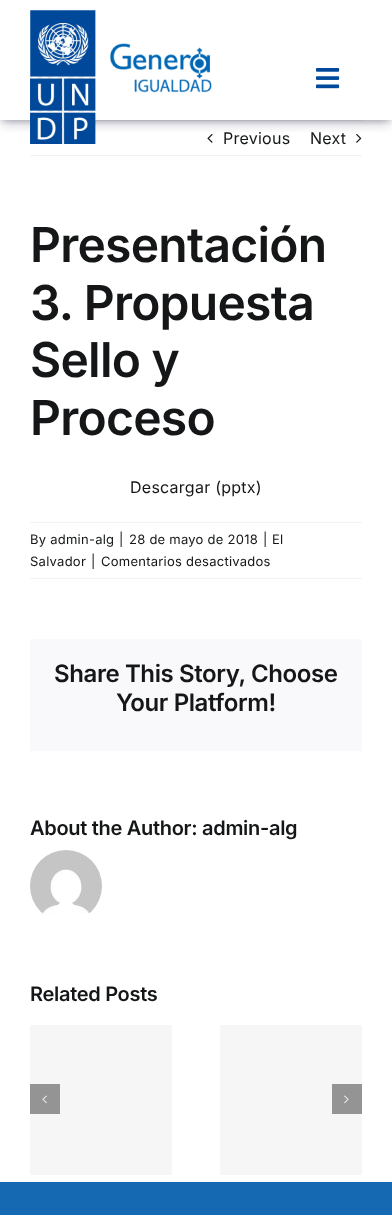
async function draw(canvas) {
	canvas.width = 392;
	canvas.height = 1215;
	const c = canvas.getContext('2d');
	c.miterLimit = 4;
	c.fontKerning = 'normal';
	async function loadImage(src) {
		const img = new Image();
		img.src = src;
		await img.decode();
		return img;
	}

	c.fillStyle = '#fff';
	c.fillRect(0, 0, 392, 1215);
	c.fillStyle = '#f2f3f5';
	c.fillRect(95, 120, 267, 1);
	c.save();
	c.beginPath();
	c.rect(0, 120, 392, 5);
	c.clip();
	c.fillStyle = '#0000004d';
	c.filter = 'blur(3.5px)';
	c.beginPath();
	c.rect(3, 6, 386, 114);
	c.fill();
	c.filter = 'none';
	c.restore();
	c.drawImage(await loadImage('img3.png'), 207, 134, 6, 9);
	c.drawImage(await loadImage('img4.png'), 356, 134, 6, 9);
	c.save();
	c.beginPath();
	c.rect(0, 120, 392, 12);
	c.clip();
	c.fillStyle = '#32325d40';
	c.filter = 'blur(6px)';
	c.beginPath();
	c.rect(2, 8, 388, 116);
	c.fill();
	c.filter = 'none';
	c.restore();
	c.drawImage(await loadImage('img1.png'), 30, 10, 182, 134);
	c.drawImage(await loadImage('img2.png'), 316, 68, 24, 21);
	c.fillRect(30, 155, 332, 1);
	c.letterSpacing = '0.25px';
	c.font = '16px Inter';
	c.fillStyle = '#141617';
	c.fillText('Previous', 223, 144);
	c.fillText('Next', 310, 144);
	c.letterSpacing = '-0.75px';
	c.font = '600 48px Inter';
	for (const [text, x, y] of [
		['Presentación', 30, 262],
		['3. Propuesta', 30, 320],
		['Sello y', 30, 377],
		['Proceso', 30, 435],
	]) {
		c.fillText(text, x, y);
	}
	c.letterSpacing = '0.25px';
	c.font = '16px Inter';
	c.fillText('Descargar (pptx)', 130, 493);
	c.fillStyle = '#f2f3f5';
	c.fillRect(30, 522, 332, 1);
	c.fillRect(30, 578, 332, 1);
	c.font = '13px Inter';
	c.fillStyle = '#141617';
	for (const [text, x, y] of [
		['By admin-alg', 30, 544],
		['|', 119, 544],
		['28 de mayo de 2018', 129, 544],
		['|', 263, 544],
		['El', 272, 544],
		['Salvador', 30, 566],
		['|', 91, 566],
		['Comentarios desactivados', 101, 566],
	]) {
		c.fillText(text, x, y);
	}
	c.fillStyle = '#f9f9fb';
	c.fillRect(30, 639, 332, 112);
	c.letterSpacing = '-0.4px';
	c.font = '600 24px Inter';
	c.fillStyle = '#141617';
	c.fillText('Share This Story, Choose', 54, 682);
	c.fillText('Your Platform!', 116, 711);
	c.letterSpacing = '-0.3px';
	c.font = '600 20px Inter';
	c.fillText('About the Author: admin-alg', 30, 835);
	c.drawImage(await loadImage('img5.png'), 30, 850, 72, 64);
	c.fillText('Related Posts', 30, 1001);
	for (const [x, y, w, h, color] of [
		[30, 1025, 142, 150, '#f6f6f6'],
		[220, 1025, 142, 150, '#f6f6f6'],
		[30, 1084, 30, 30, '#949494'],
	]) {
		c.fillStyle = color;
		c.fillRect(x, y, w, h);
	}
	c.drawImage(await loadImage('img6.png'), 42, 1095, 5, 9);
	c.fillRect(332, 1084, 30, 30);
	c.drawImage(await loadImage('img7.png'), 344, 1095, 5, 9);
	c.fillStyle = '#1568b2';
	c.fillRect(0, 1182, 392, 33);
}

draw(document.querySelector('canvas'));
